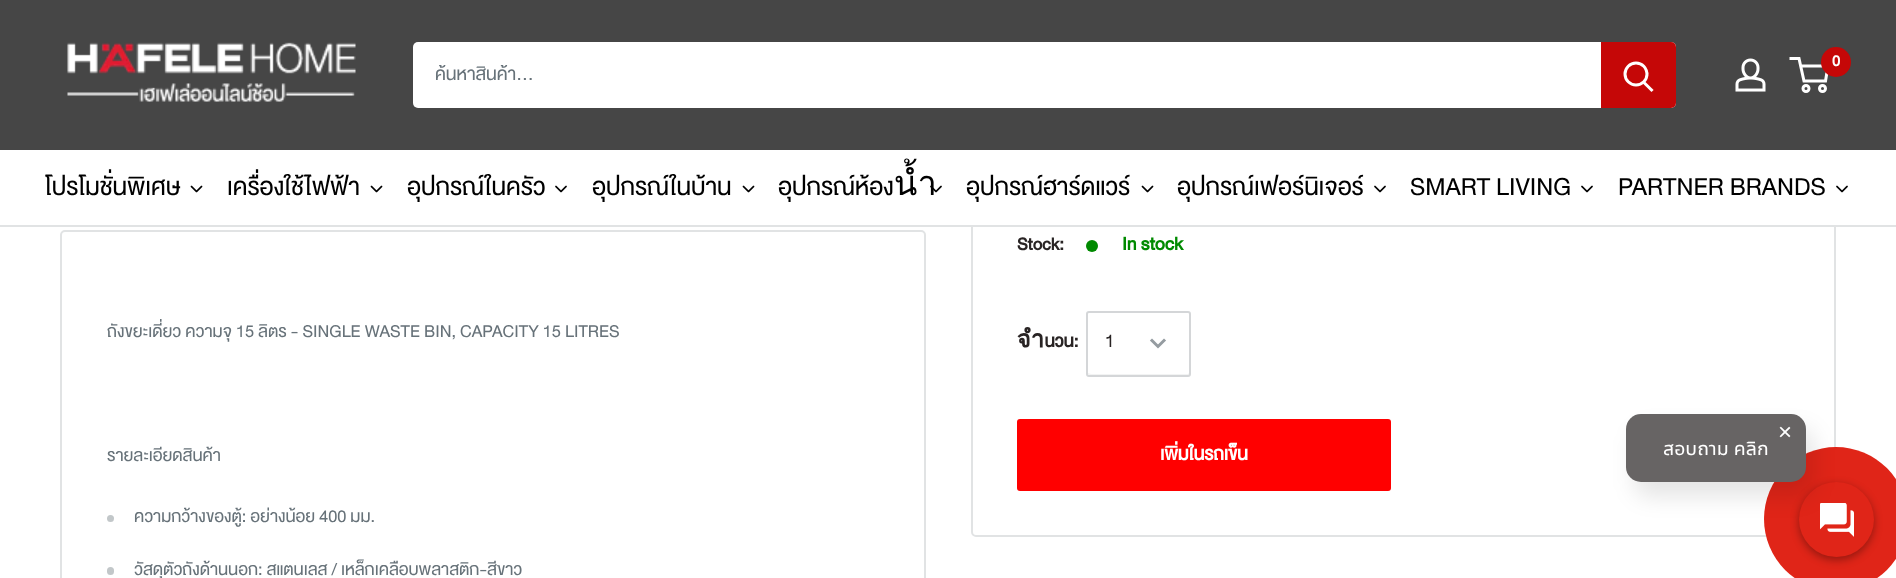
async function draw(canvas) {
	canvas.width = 1896;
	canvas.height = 578;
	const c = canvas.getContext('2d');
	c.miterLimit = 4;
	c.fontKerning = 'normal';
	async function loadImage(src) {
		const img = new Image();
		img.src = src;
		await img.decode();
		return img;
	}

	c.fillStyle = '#fff';
	c.fillRect(0, 0, 1896, 578);
	c.beginPath();
	c.roundRect(972, -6, 863, 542, 4);
	c.strokeStyle = '#e1e3e4';
	c.lineWidth = 2;
	c.stroke();
	c.fillStyle = '#464646';
	c.fillRect(0, 0, 1896, 150);
	c.drawImage(await loadImage('img1.png'), 67, 42, 289, 60);
	c.drawImage(await loadImage('img2.png'), 1735, 58, 31, 34);
	c.beginPath();
	c.arc(1806, 88.5, 3, 0, 2 * Math.PI);
	c.strokeStyle = '#fff';
	c.lineWidth = 3;
	c.stroke();
	c.beginPath();
	c.arc(1822.5, 88.5, 3, 0, 2 * Math.PI);
	c.stroke();
	c.beginPath();
	c.moveTo(1800.5, 66);
	c.lineTo(1828, 66);
	c.lineTo(1825.5, 81);
	c.lineTo(1804, 81);
	c.lineTo(1799, 58.5);
	c.lineTo(1789.5, 58.5);
	c.stroke();
	c.fillStyle = '#c50707';
	c.beginPath();
	c.arc(1836, 62, 15, 0, 2 * Math.PI);
	c.fill();
	c.font = 'bold 21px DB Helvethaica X';
	c.fillStyle = '#fff';
	c.fillText('0', 1832, 66);
	c.beginPath();
	c.roundRect(413, 42, 1263, 66, 5);
	c.fill();
	c.save();
	c.beginPath();
	c.rect(435, 60, 1143, 30);
	c.clip();
	c.font = '25.5px DB Helvethaica X';
	c.fillStyle = '#677279';
	c.fillText('ค้นหาสินค้า...', 435, 80);
	c.restore();
	c.fillStyle = '#c50707';
	c.beginPath();
	c.roundRect(1601, 42, 75, 66, [0, 5, 5, 0]);
	c.fill();
	c.beginPath();
	c.moveTo(1651.5, 90);
	c.lineTo(1644, 82.5);
	c.lineCap = 'square';
	c.stroke();
	c.beginPath();
	c.arc(1636, 74, 11, 0, 2 * Math.PI);
	c.stroke();
	c.fillStyle = '#fff';
	c.fillRect(971, 150, 865, 75);
	c.fillStyle = '#e1e3e4';
	c.fillRect(0, 225, 1896, 2);
	c.font = '34.5px DB Helvethaica X';
	c.fillStyle = '#000';
	c.fillText('โปรโมชั่นพิเศษ', 45, 195);
	c.drawImage(await loadImage('img3.png'), 190, 185, 13, 8);
	c.fillText('เครื่องใช้ไฟฟ้า', 227, 195);
	c.drawImage(await loadImage('img3.png'), 370, 185, 13, 8);
	c.fillText('อุปกรณ์ในครัว', 407, 195);
	c.drawImage(await loadImage('img4.png'), 555, 185, 12, 8);
	c.fillText('อุปกรณ์ในบ้าน', 592, 195);
	c.drawImage(await loadImage('img3.png'), 742, 185, 13, 8);
	c.fillText('อุปกรณ์ห้องน้ำ', 778, 195);
	c.drawImage(await loadImage('img4.png'), 930, 185, 12, 8);
	c.fillText('อุปกรณ์ฮาร์ดแวร์', 966, 195);
	c.drawImage(await loadImage('img3.png'), 1141, 185, 13, 8);
	c.fillText('อุปกรณ์เฟอร์นิเจอร์', 1177, 195);
	c.drawImage(await loadImage('img4.png'), 1374, 185, 12, 8);
	c.fillText('SMART LIVING', 1410, 195);
	c.drawImage(await loadImage('img4.png'), 1581, 185, 12, 8);
	c.fillText('PARTNER BRANDS', 1618, 195);
	c.drawImage(await loadImage('img4.png'), 1836, 185, 12, 8);
	c.beginPath();
	c.roundRect(61, 231, 864, 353, 4);
	c.strokeStyle = '#e1e3e4';
	c.lineWidth = 2;
	c.stroke();
	c.font = '24px DB Helvethaica X';
	c.fillStyle = '#677279';
	c.fillText('ถังขยะเดี่ยว ความจุ 15 ลิตร - SINGLE WASTE BIN, CAPACITY 15 LITRES', 107, 337);
	c.fillText('รายละเอียดสินค้า', 107, 461);
	c.fillStyle = '#c2c7c9';
	c.beginPath();
	c.arc(110.5, 518.5, 3.5, 0, 2 * Math.PI);
	c.fill();
	c.fillStyle = '#677279';
	c.fillText('ความกว้างของตู้: อย่างน้อย 400 มม.', 134, 522);
	c.fillStyle = '#c2c7c9';
	c.beginPath();
	c.roundRect(107, 567, 7, 8, 3.5);
	c.fill();
	c.fillStyle = '#677279';
	c.fillText('วัสดุตัวถังด้านนอก: สแตนเลส / เหล็กเคลือบพลาสติก-สีขาว', 134, 575);
	c.font = 'bold 24px DB Helvethaica X';
	c.fillStyle = '#292424';
	c.fillText('Stock:', 1017, 250);
	c.fillStyle = '#008a00';
	c.beginPath();
	c.arc(1092, 246, 6, 0, 2 * Math.PI);
	c.fill();
	c.font = 'bold 25.5px DB Helvethaica X';
	c.fillText('In stock', 1122, 250);
	c.font = 'bold 24px DB Helvethaica X';
	c.fillStyle = '#292424';
	c.fillText('จำนวน:', 1017, 347);
	c.fillStyle = '#f2f3f3';
	c.beginPath();
	c.moveTo(1088, 373);
	c.lineTo(1088, 374);
	c.bezierCurveTo(1088, 374, 1089, 375, 1090, 375);
	c.lineTo(1188, 375);
	c.bezierCurveTo(1189, 375, 1190, 374, 1190, 374);
	c.lineTo(1190, 332);
	c.lineTo(1189, 373);
	c.lineTo(1188, 374);
	c.lineTo(1091, 374);
	c.closePath();
	c.fill();
	c.beginPath();
	c.roundRect(1087, 312, 103, 64, 2);
	c.strokeStyle = '#d4d6d8';
	c.stroke();
	c.font = '25.5px DB Helvethaica X';
	c.fillStyle = '#292424';
	c.fillText('1', 1105, 347);
	c.beginPath();
	c.moveTo(1164, 340.5);
	c.lineTo(1158, 346.5);
	c.lineTo(1152, 340.5);
	c.strokeStyle = '#959ca1';
	c.lineWidth = 3;
	c.stroke();
	c.fillStyle = '#f00';
	c.beginPath();
	c.roundRect(1017, 419, 374, 72, 3);
	c.fill();
	c.font = 'bold 25.5px DB Helvethaica X';
	c.fillStyle = '#fff';
	c.fillText('เพิ่มในรถเข็น', 1160, 460);
	c.fillStyle = '#e02518';
	c.beginPath();
	c.arc(1836, 519, 72, 0, 2 * Math.PI);
	c.fill();
	c.fillStyle = '#00000059';
	c.filter = 'blur(4px)';
	c.beginPath();
	c.roundRect(1799, 485, 75, 75, 37.5);
	c.fill();
	c.filter = 'none';
	c.fillStyle = '#e02518';
	c.beginPath();
	c.arc(1836.5, 519.5, 37.5, 0, 2 * Math.PI);
	c.fill();
	c.drawImage(await loadImage('img5.png'), 1820, 503, 34, 34);
	c.fillStyle = '#0000001a';
	c.filter = 'blur(11px)';
	c.beginPath();
	c.roundRect(1634, 429, 180, 68, 15);
	c.fill();
	c.filter = 'none';
	c.fillStyle = '#676464';
	c.beginPath();
	c.roundRect(1626, 414, 180, 68, 15);
	c.fill();
	c.font = '24px Liberation Sans';
	c.fillStyle = '#fff';
	c.fillText('×', 1778, 440);
	c.font = '19.5px Noto Sans Thai UI';
	c.fillText('สอบถาม คลิก', 1663, 455);
}

draw(document.querySelector('canvas'));
